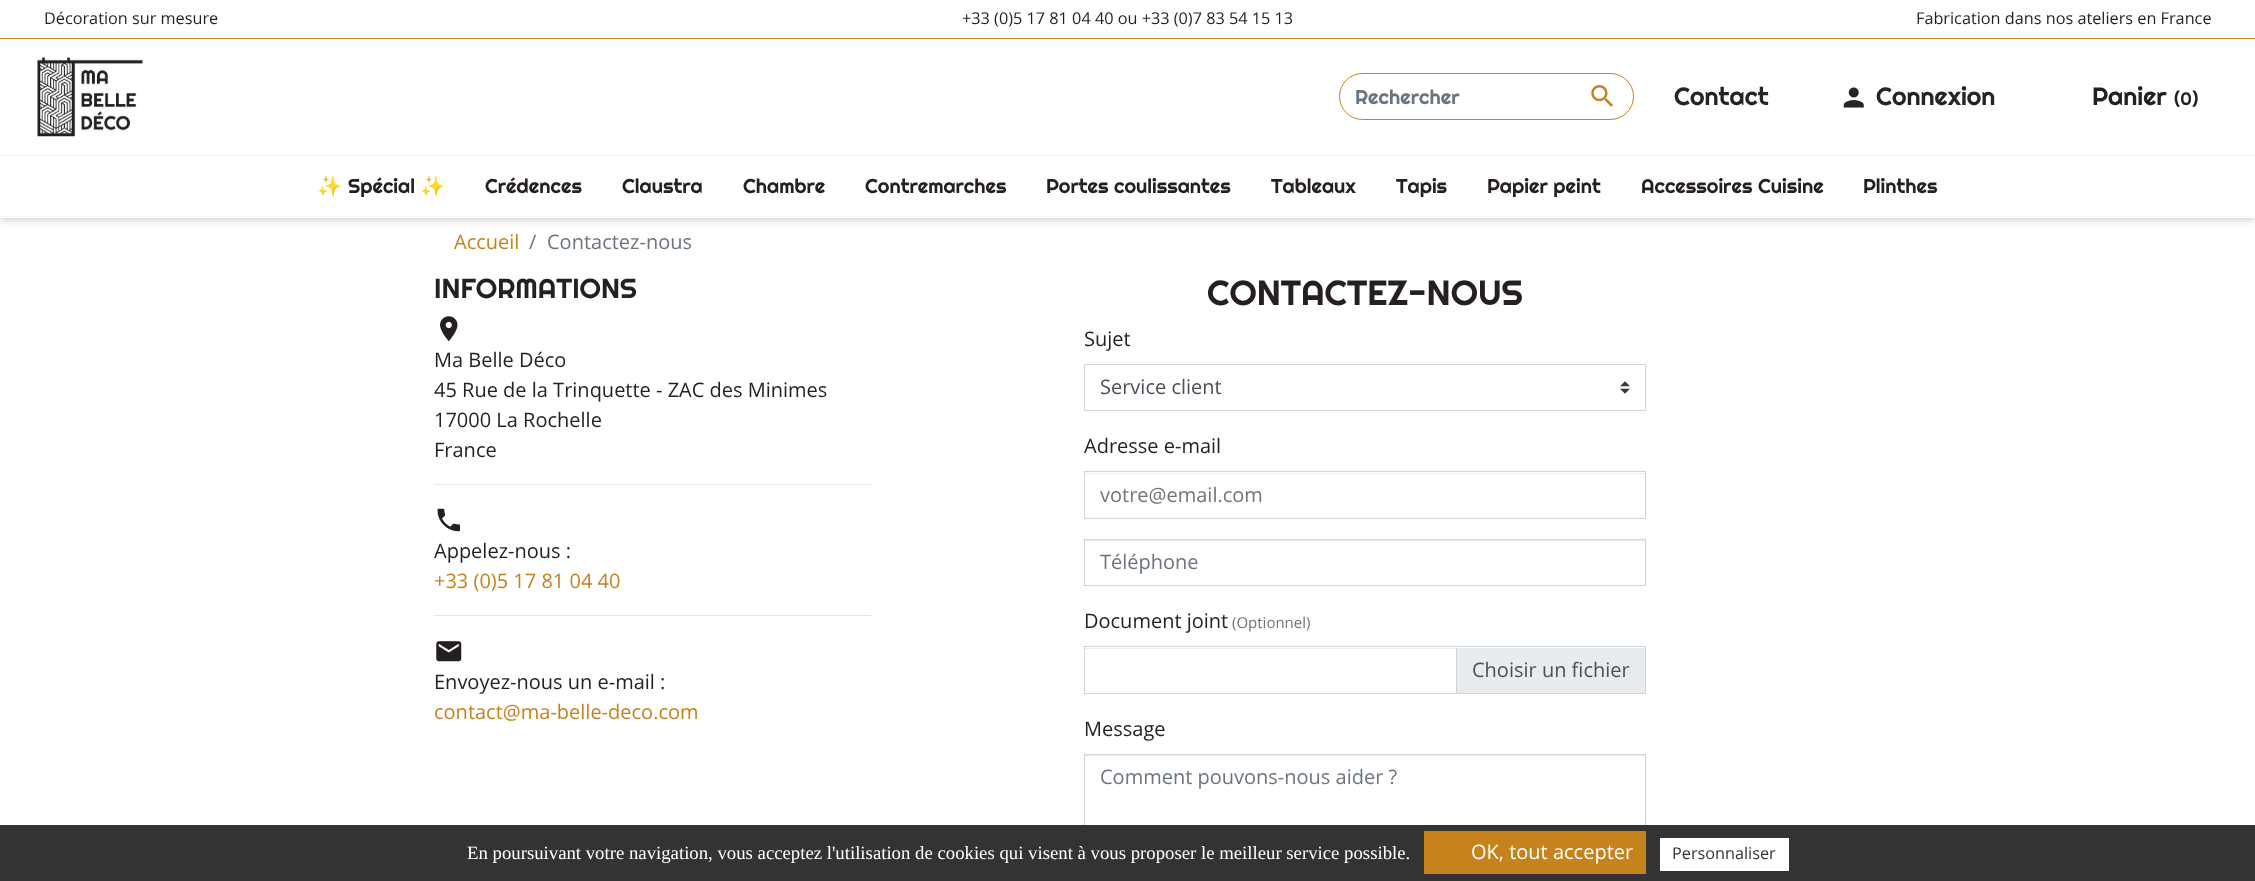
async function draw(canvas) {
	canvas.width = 2255;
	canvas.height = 881;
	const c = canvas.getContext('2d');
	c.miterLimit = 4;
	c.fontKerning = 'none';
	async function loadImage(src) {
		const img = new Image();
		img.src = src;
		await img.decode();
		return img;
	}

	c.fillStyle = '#fff';
	c.fillRect(0, 0, 2255, 881);
	c.fillStyle = '#00000033';
	c.filter = 'blur(4px)';
	c.beginPath();
	c.rect(0, 3, 2255, 217);
	c.fill();
	c.filter = 'none';
	c.fillStyle = '#fff';
	c.fillRect(0, 0, 2255, 218);
	c.fillStyle = '#c6821c';
	c.fillRect(0, 38, 2255, 1);
	c.font = '16.25px Open Sans';
	c.fillStyle = '#251f1f';
	for (const [text, x, y] of [
		['Décoration sur mesure', 44, 24],
		['+33 (0)5 17 81 04 40 ou +33 (0)7 83 54 15 13', 962, 24],
		['Fabrication dans nos ateliers en France', 1916, 24],
	]) {
		c.fillText(text, x, y);
	}
	c.drawImage(await loadImage('img1.png'), 37, 57, 106, 80);
	c.beginPath();
	c.roundRect(1339.5, 73.5, 294, 46, 23);
	c.strokeStyle = '#c6821c';
	c.stroke();
	c.font = '20px Righteous';
	c.fillStyle = '#6c757d';
	c.fillText('Rechercher', 1355, 104);
	c.drawImage(await loadImage('img2.png'), 1591, 85, 22, 22);
	c.font = '25px Righteous';
	c.fillStyle = '#212529';
	c.fillText('Contact', 1674, 105);
	c.drawImage(await loadImage('img3.png'), 1843, 87, 21, 21);
	c.fillText('Connexion', 1876, 105);
	c.fillStyle = '#251f1f';
	c.fillText('Panier', 2092, 105);
	c.font = '18px Righteous';
	c.fillText('(0)', 2174, 105);
	c.fillStyle = '#eff4fd';
	c.fillRect(0, 155, 2255, 1);
	c.fillRect(0, 216, 2255, 1);
	c.font = '20px Noto Color Emoji';
	c.fillStyle = '#251f1f';
	c.fillText('✨', 317, 193);
	c.font = '20px Righteous';
	c.fillText('Spécial', 348, 193);
	c.font = '20px Noto Color Emoji';
	c.fillText('✨', 420, 193);
	c.font = '20px Righteous';
	for (const [text, x, y] of [
		['Crédences', 485, 193],
		['Claustra', 622, 193],
		['Chambre', 743, 193],
		['Contremarches', 865, 193],
		['Portes coulissantes', 1046, 193],
		['Tableaux', 1271, 193],
		['Tapis', 1396, 193],
		['Papier peint', 1487, 193],
		['Accessoires Cuisine', 1641, 193],
		['Plinthes', 1863, 193],
	]) {
		c.fillText(text, x, y);
	}
	c.font = '20px Open Sans';
	c.fillStyle = '#c6821c';
	c.fillText('Accueil', 454, 249);
	c.fillStyle = '#6c757d';
	c.fillText('/', 529, 249);
	c.fillText('Contactez-nous', 547, 249);
	c.font = '27.5px Righteous';
	c.fillStyle = '#251f1f';
	c.fillText('INFORMATIONS', 434, 298);
	c.drawImage(await loadImage('img4.png'), 440, 316, 18, 26);
	c.font = '20px Open Sans';
	for (const [text, x, y] of [
		['Ma Belle Déco', 434, 367],
		['45 Rue de la Trinquette - ZAC des Minimes', 434, 397],
		['17000 La Rochelle', 434, 427],
		['France', 434, 457],
	]) {
		c.fillText(text, x, y);
	}
	c.fillStyle = '#e6e6e6';
	c.fillRect(434, 484, 437, 1);
	c.drawImage(await loadImage('img5.png'), 437, 508, 23, 24);
	c.fillStyle = '#251f1f';
	c.fillText('Appelez-nous :', 434, 558);
	c.fillStyle = '#c6821c';
	c.fillText('+33 (0)5 17 81 04 40', 434, 588);
	c.fillStyle = '#e6e6e6';
	c.fillRect(434, 615, 437, 1);
	c.drawImage(await loadImage('img6.png'), 436, 641, 26, 21);
	c.fillStyle = '#251f1f';
	c.fillText('Envoyez-nous un e-mail :', 434, 689);
	c.fillStyle = '#c6821c';
	c.fillText('contact@ma-belle-deco.com', 434, 719);
	c.font = '35px Righteous';
	c.fillStyle = '#251f1f';
	c.fillText('CONTACTEZ-NOUS', 1207, 305);
	c.font = '20px Open Sans';
	c.fillText('Sujet', 1084, 346);
	c.drawImage(await loadImage('img7.png'), 1620, 381, 10, 13);
	c.strokeStyle = '#ced4da';
	c.strokeRect(1084.5, 364.5, 561, 46);
	c.fillStyle = '#495057';
	c.fillText('Service client', 1100, 394);
	c.fillStyle = '#251f1f';
	c.fillText('Adresse e-mail', 1084, 453);
	c.fillStyle = '#ececec';
	c.fillRect(1085, 473, 560, 1);
	c.strokeRect(1084.5, 471.5, 561, 47);
	c.fillStyle = '#6c757d';
	c.fillText('votre@email.com', 1100, 502);
	c.fillStyle = '#ececec';
	c.fillRect(1085, 540, 560, 1);
	c.strokeRect(1084.5, 539.5, 561, 46);
	c.fillStyle = '#6c757d';
	c.fillText('Téléphone', 1100, 569);
	c.fillStyle = '#251f1f';
	c.fillText('Document joint', 1084, 628);
	c.font = '15px Open Sans';
	c.fillStyle = '#6c757d';
	c.fillText('(Optionnel)', 1232, 628);
	c.fillStyle = '#ececec';
	c.fillRect(1085, 648, 371, 1);
	c.strokeRect(1084.5, 646.5, 561, 47);
	c.fillStyle = '#e9ecef';
	c.fillRect(1457, 648, 188, 45);
	c.fillStyle = '#ced4da';
	c.fillRect(1456, 648, 1, 45);
	c.font = '20px Open Sans';
	c.fillStyle = '#495057';
	c.fillText('Choisir un fichier', 1472, 677);
	c.fillStyle = '#251f1f';
	c.fillText('Message', 1084, 736);
	c.fillStyle = '#ececec';
	c.fillRect(1085, 755, 560, 1);
	c.strokeRect(1084.5, 754.5, 561, 106);
	c.fillStyle = '#6c757d';
	c.fillText('Comment pouvons-nous aider ?', 1100, 784);
	c.fillStyle = '#333';
	c.fillRect(0, 825, 2255, 56);
	c.font = '18.75px Liberation Serif';
	c.fillStyle = '#fff';
	c.fillText('En poursuivant votre navigation, vous acceptez l\'utilisation de cookies qui visent à vous proposer le meilleur service possible.', 467, 859);
	c.fillStyle = '#c6821c';
	c.fillRect(1424, 831, 222, 43);
	c.font = '20px Open Sans';
	c.fillStyle = '#fff';
	c.fillText('OK, tout accepter', 1471, 859);
	c.fillRect(1660, 838, 129, 33);
	c.font = '16.25px Open Sans';
	c.fillStyle = '#333';
	c.fillText('Personnaliser', 1672, 859);
}

draw(document.querySelector('canvas'));
